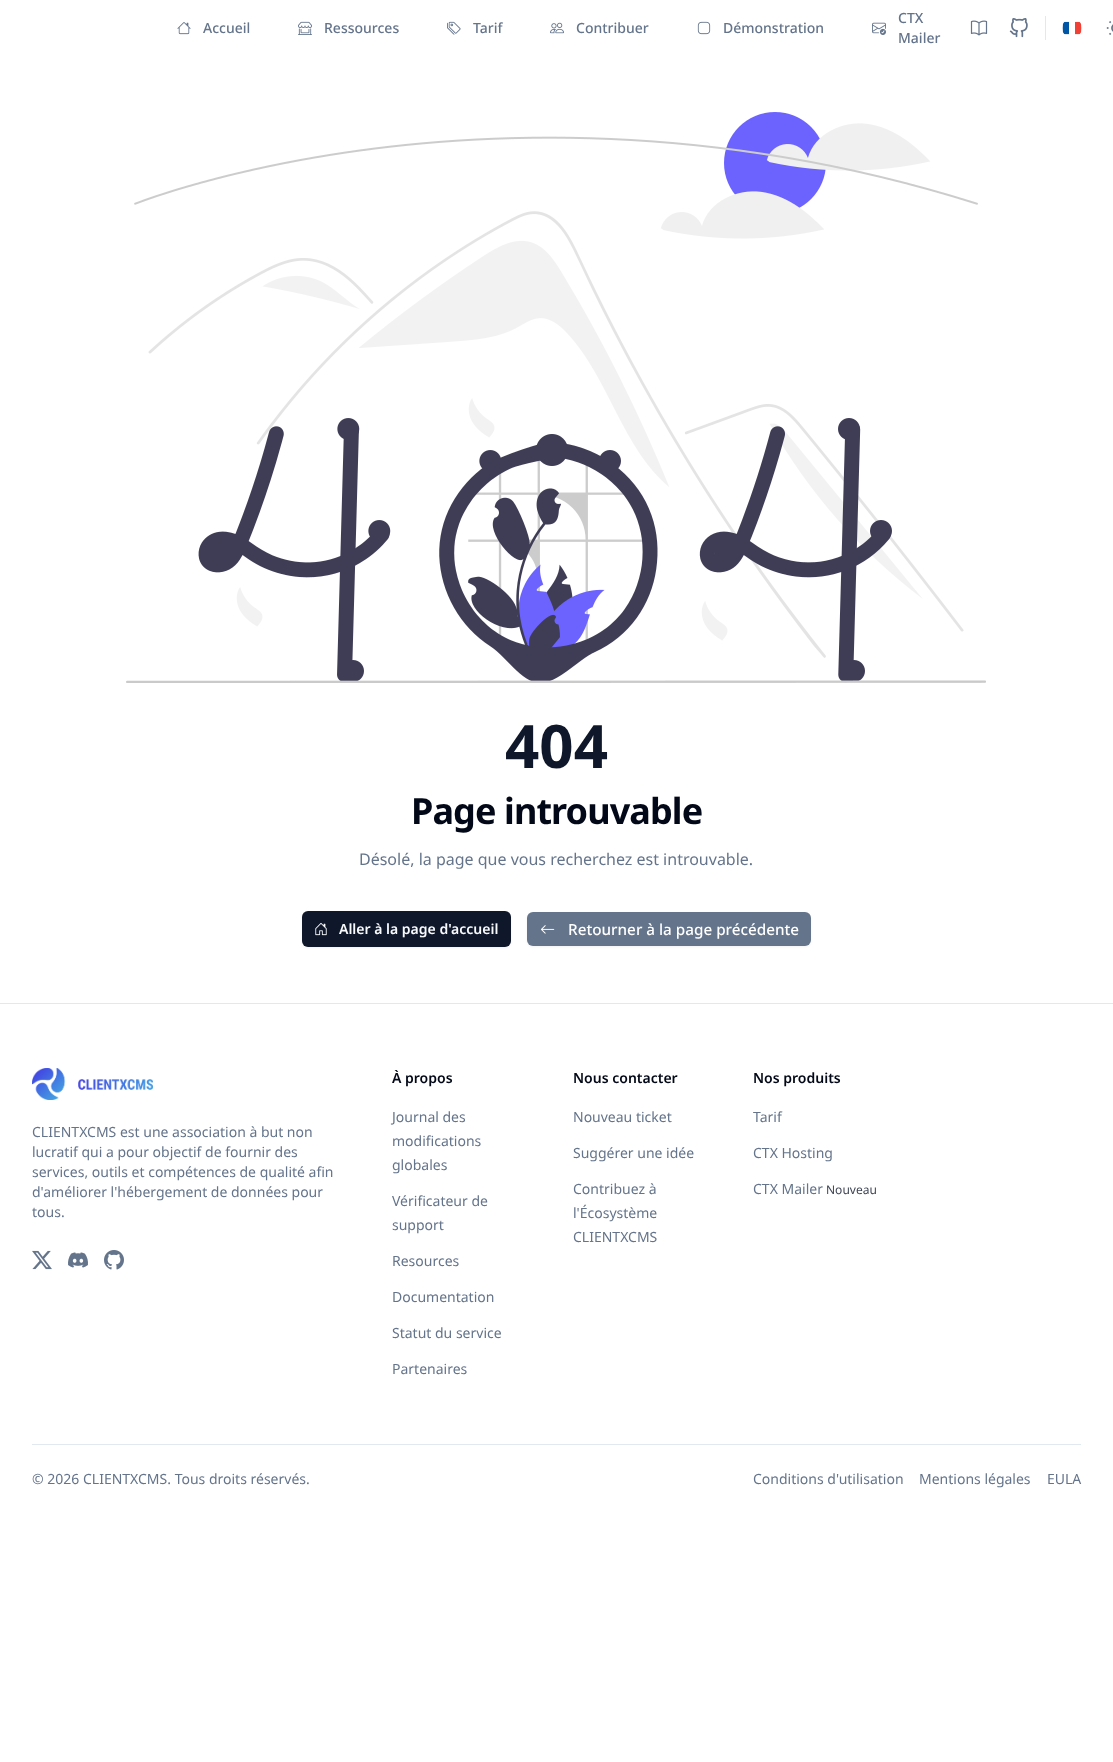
async function draw(canvas) {
	canvas.width = 1113;
	canvas.height = 1762;
	const c = canvas.getContext('2d');
	c.miterLimit = 4;
	c.fontKerning = 'normal';
	async function loadImage(src) {
		const img = new Image();
		img.src = src;
		await img.decode();
		return img;
	}

	c.fillStyle = '#fff';
	c.fillRect(0, 0, 1113, 1762);
	c.drawImage(await loadImage('img1.png'), 177, 22, 14, 13);
	c.font = '500 14px Noto Sans';
	c.fillStyle = '#64748b';
	c.fillText('Accueil', 203, 33);
	c.drawImage(await loadImage('img2.png'), 298, 21, 14, 14);
	c.fillText('Ressources', 324, 33);
	c.drawImage(await loadImage('img3.png'), 447, 21, 14, 14);
	c.fillText('Tarif', 473, 33);
	c.drawImage(await loadImage('img4.png'), 550, 22, 14, 12);
	c.fillText('Contribuer', 576, 33);
	c.drawImage(await loadImage('img5.png'), 697, 21, 14, 14);
	c.fillText('Démonstration', 723, 33);
	c.fillText('CTX', 898, 23);
	c.drawImage(await loadImage('img6.png'), 872, 22, 14, 13);
	c.fillText('Mailer', 898, 43);
	c.drawImage(await loadImage('img7.png'), 970, 20, 18, 16);
	c.drawImage(await loadImage('img8.png'), 1009, 18, 19, 20);
	c.fillStyle = '#e2e8f0';
	c.fillRect(1045, 16, 1, 24);
	c.drawImage(await loadImage('img9.png'), 1062, 21, 20, 14);
	c.drawImage(await loadImage('img10.png'), 1106, 21, 7, 14);
	c.drawImage(await loadImage('img11.png'), 126, 112, 860, 571);
	c.font = 'bold 60px Noto Sans';
	c.fillStyle = '#0f172a';
	c.fillText('404', 505, 768);
	c.letterSpacing = '-0.9px';
	c.font = 'bold 36px Noto Sans';
	c.fillStyle = '#020817';
	c.fillText('Page introuvable', 411, 824);
	c.letterSpacing = '0px';
	c.font = '16px Noto Sans';
	c.fillStyle = '#64748b';
	c.fillText('Désolé, la page que vous recherchez est introuvable.', 359, 865);
	c.fillStyle = '#0000000d';
	c.filter = 'blur(1px)';
	c.beginPath();
	c.roundRect(302, 912, 209, 36, 6);
	c.fill();
	c.filter = 'none';
	c.fillStyle = '#0f172a';
	c.beginPath();
	c.roundRect(302, 911, 209, 36, 6);
	c.fill();
	c.drawImage(await loadImage('img12.png'), 315, 922, 12, 14);
	c.font = '600 14px Noto Sans';
	c.fillStyle = '#f8fafc';
	c.fillText('Aller à la page d\'accueil', 339, 934);
	c.fillStyle = '#0000000d';
	c.filter = 'blur(1px)';
	c.beginPath();
	c.roundRect(527, 913, 284, 34, 6);
	c.fill();
	c.filter = 'none';
	c.fillStyle = '#64748b';
	c.beginPath();
	c.roundRect(527, 912, 284, 34, 6);
	c.fill();
	c.drawImage(await loadImage('img13.png'), 541, 925, 14, 9);
	c.font = '500 15.25px Noto Sans';
	c.fillStyle = '#fff';
	c.fillText('Retourner à la page précédente', 568, 935);
	c.fillStyle = '#e2e8f0';
	c.fillRect(0, 1003, 1113, 1);
	c.drawImage(await loadImage('img14.png'), 32, 1068, 121, 32);
	c.font = '14px Noto Sans';
	c.fillStyle = '#64748b';
	for (const [text, x, y] of [
		['CLIENTXCMS est une association à but non', 32, 1137],
		['lucratif qui a pour objectif de fournir des', 32, 1157],
		['services, outils et compétences de qualité afin', 32, 1177],
		['d\'améliorer l\'hébergement de données pour', 32, 1197],
		['tous.', 32, 1217],
	]) {
		c.fillText(text, x, y);
	}
	c.drawImage(await loadImage('img15.png'), 32, 1250, 20, 20);
	c.drawImage(await loadImage('img16.png'), 68, 1252, 20, 16);
	c.drawImage(await loadImage('img17.png'), 104, 1250, 20, 20);
	c.font = '600 14px Noto Sans';
	c.fillStyle = '#020817';
	c.fillText('À propos', 392, 1083);
	c.font = '14px Noto Sans';
	c.fillStyle = '#64748b';
	for (const [text, x, y] of [
		['Journal des', 392, 1122],
		['modifications', 392, 1146],
		['globales', 392, 1170],
		['Vérificateur de', 392, 1206],
		['support', 392, 1230],
		['Resources', 392, 1266],
		['Documentation', 392, 1302],
		['Statut du service', 392, 1338],
		['Partenaires', 392, 1374],
	]) {
		c.fillText(text, x, y);
	}
	c.font = '600 14px Noto Sans';
	c.fillStyle = '#020817';
	c.fillText('Nous contacter', 573, 1083);
	c.font = '14px Noto Sans';
	c.fillStyle = '#64748b';
	for (const [text, x, y] of [
		['Nouveau ticket', 573, 1122],
		['Suggérer une idée', 573, 1158],
		['Contribuez à', 573, 1194],
		['l\'Écosystème', 573, 1218],
		['CLIENTXCMS', 573, 1242],
	]) {
		c.fillText(text, x, y);
	}
	c.font = '600 14px Noto Sans';
	c.fillStyle = '#020817';
	c.fillText('Nos produits', 753, 1083);
	c.font = '14px Noto Sans';
	c.fillStyle = '#64748b';
	for (const [text, x, y] of [
		['Tarif', 753, 1122],
		['CTX Hosting', 753, 1158],
		['CTX Mailer', 753, 1194],
	]) {
		c.fillText(text, x, y);
	}
	c.font = '12px Noto Sans';
	c.fillStyle = '#3f4555';
	c.fillText('Nouveau', 826, 1194);
	c.fillStyle = '#e2e8f0';
	c.fillRect(32, 1444, 1049, 1);
	c.font = '14px Noto Sans';
	c.fillStyle = '#64748b';
	for (const [text, x, y] of [
		['© 2026 CLIENTXCMS. Tous droits réservés.', 32, 1484],
		['Conditions d\'utilisation', 753, 1484],
		['Mentions légales', 919, 1484],
		['EULA', 1047, 1484],
	]) {
		c.fillText(text, x, y);
	}
}

draw(document.querySelector('canvas'));
